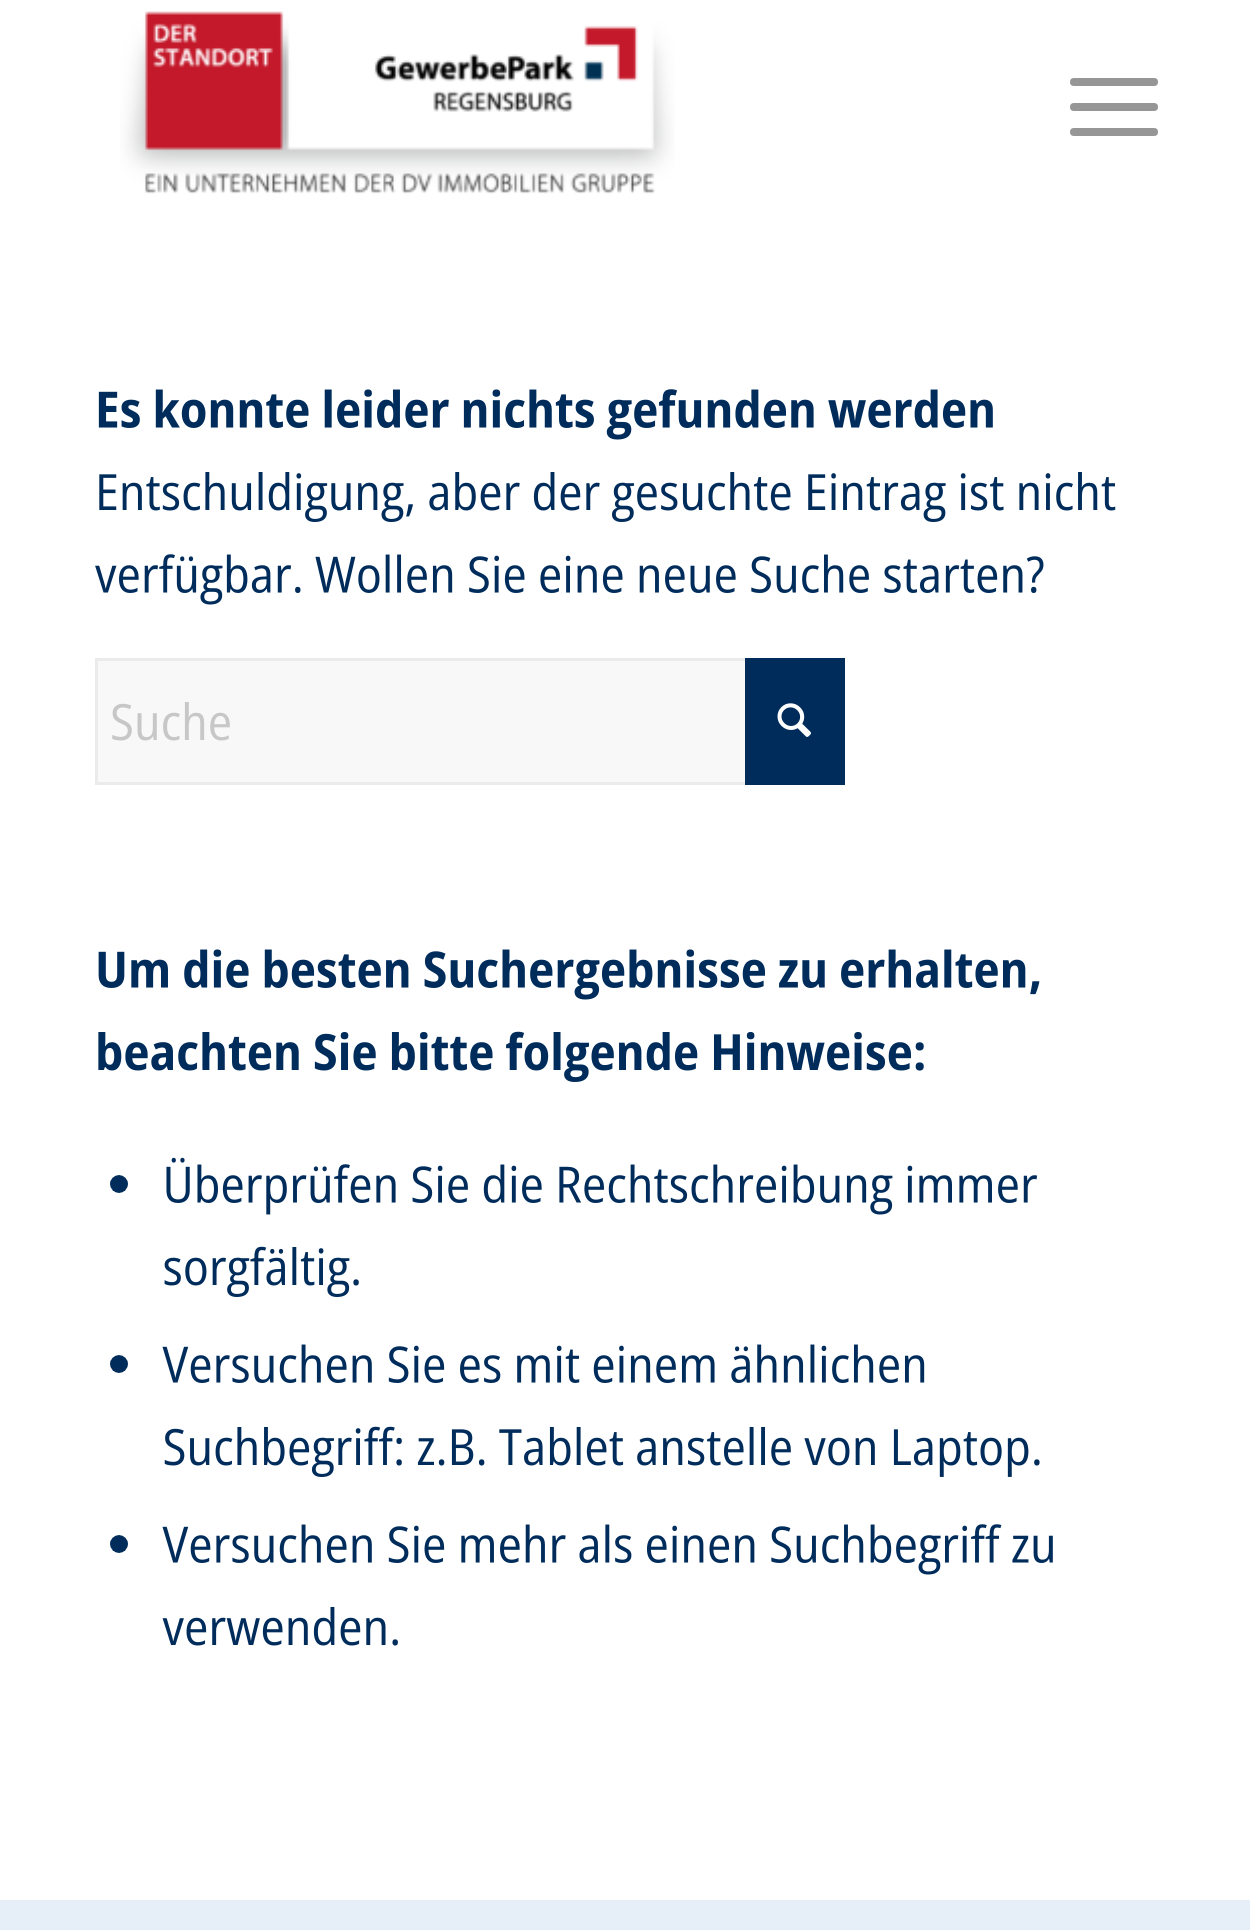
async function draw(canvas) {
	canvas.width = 1250;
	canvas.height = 1930;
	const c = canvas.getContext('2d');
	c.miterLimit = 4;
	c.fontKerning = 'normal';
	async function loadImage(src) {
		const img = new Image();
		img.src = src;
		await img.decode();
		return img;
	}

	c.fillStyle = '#fff';
	c.fillRect(0, 0, 1250, 1930);
	c.drawImage(await loadImage('img1.png'), 120, 11, 555, 183);
	c.fillStyle = '#969696';
	c.beginPath();
	c.roundRect(1070, 103, 88, 8, 4);
	c.fill();
	c.beginPath();
	c.roundRect(1070, 78, 88, 8, 4);
	c.fill();
	c.beginPath();
	c.roundRect(1070, 128, 88, 8, 4);
	c.fill();
	c.drawImage(await loadImage('img2.png'), 98, 389, 895, 51);
	c.drawImage(await loadImage('img3.png'), 99, 472, 1017, 50);
	c.drawImage(await loadImage('img4.png'), 95, 554, 949, 51);
	c.fillStyle = '#f8f8f8';
	c.fillRect(98, 661, 647, 121);
	c.strokeStyle = '#ebebeb';
	c.lineWidth = 3;
	c.strokeRect(96.5, 659.5, 747, 124);
	c.drawImage(await loadImage('img5.png'), 112, 702, 118, 39);
	c.fillStyle = '#002c5c';
	c.fillRect(745, 658, 100, 127);
	c.drawImage(await loadImage('img6.png'), 777, 703, 34, 34);
	c.drawImage(await loadImage('img7.png'), 98, 949, 942, 51);
	c.drawImage(await loadImage('img8.png'), 98, 1031, 826, 51);
	c.beginPath();
	c.arc(119, 1184, 9, 0, 2 * Math.PI);
	c.fill();
	c.drawImage(await loadImage('img9.png'), 166, 1157, 872, 58);
	c.drawImage(await loadImage('img10.png'), 164, 1246, 195, 51);
	c.beginPath();
	c.arc(119, 1364, 9, 0, 2 * Math.PI);
	c.fill();
	c.drawImage(await loadImage('img11.png'), 162, 1344, 763, 39);
	c.drawImage(await loadImage('img12.png'), 164, 1426, 876, 51);
	c.beginPath();
	c.arc(119, 1544, 9, 0, 2 * Math.PI);
	c.fill();
	c.drawImage(await loadImage('img13.png'), 162, 1524, 891, 51);
	c.drawImage(await loadImage('img14.png'), 162, 1607, 236, 39);
	c.fillStyle = '#e6eff8';
	c.fillRect(0, 1900, 1250, 30);
}

draw(document.querySelector('canvas'));
